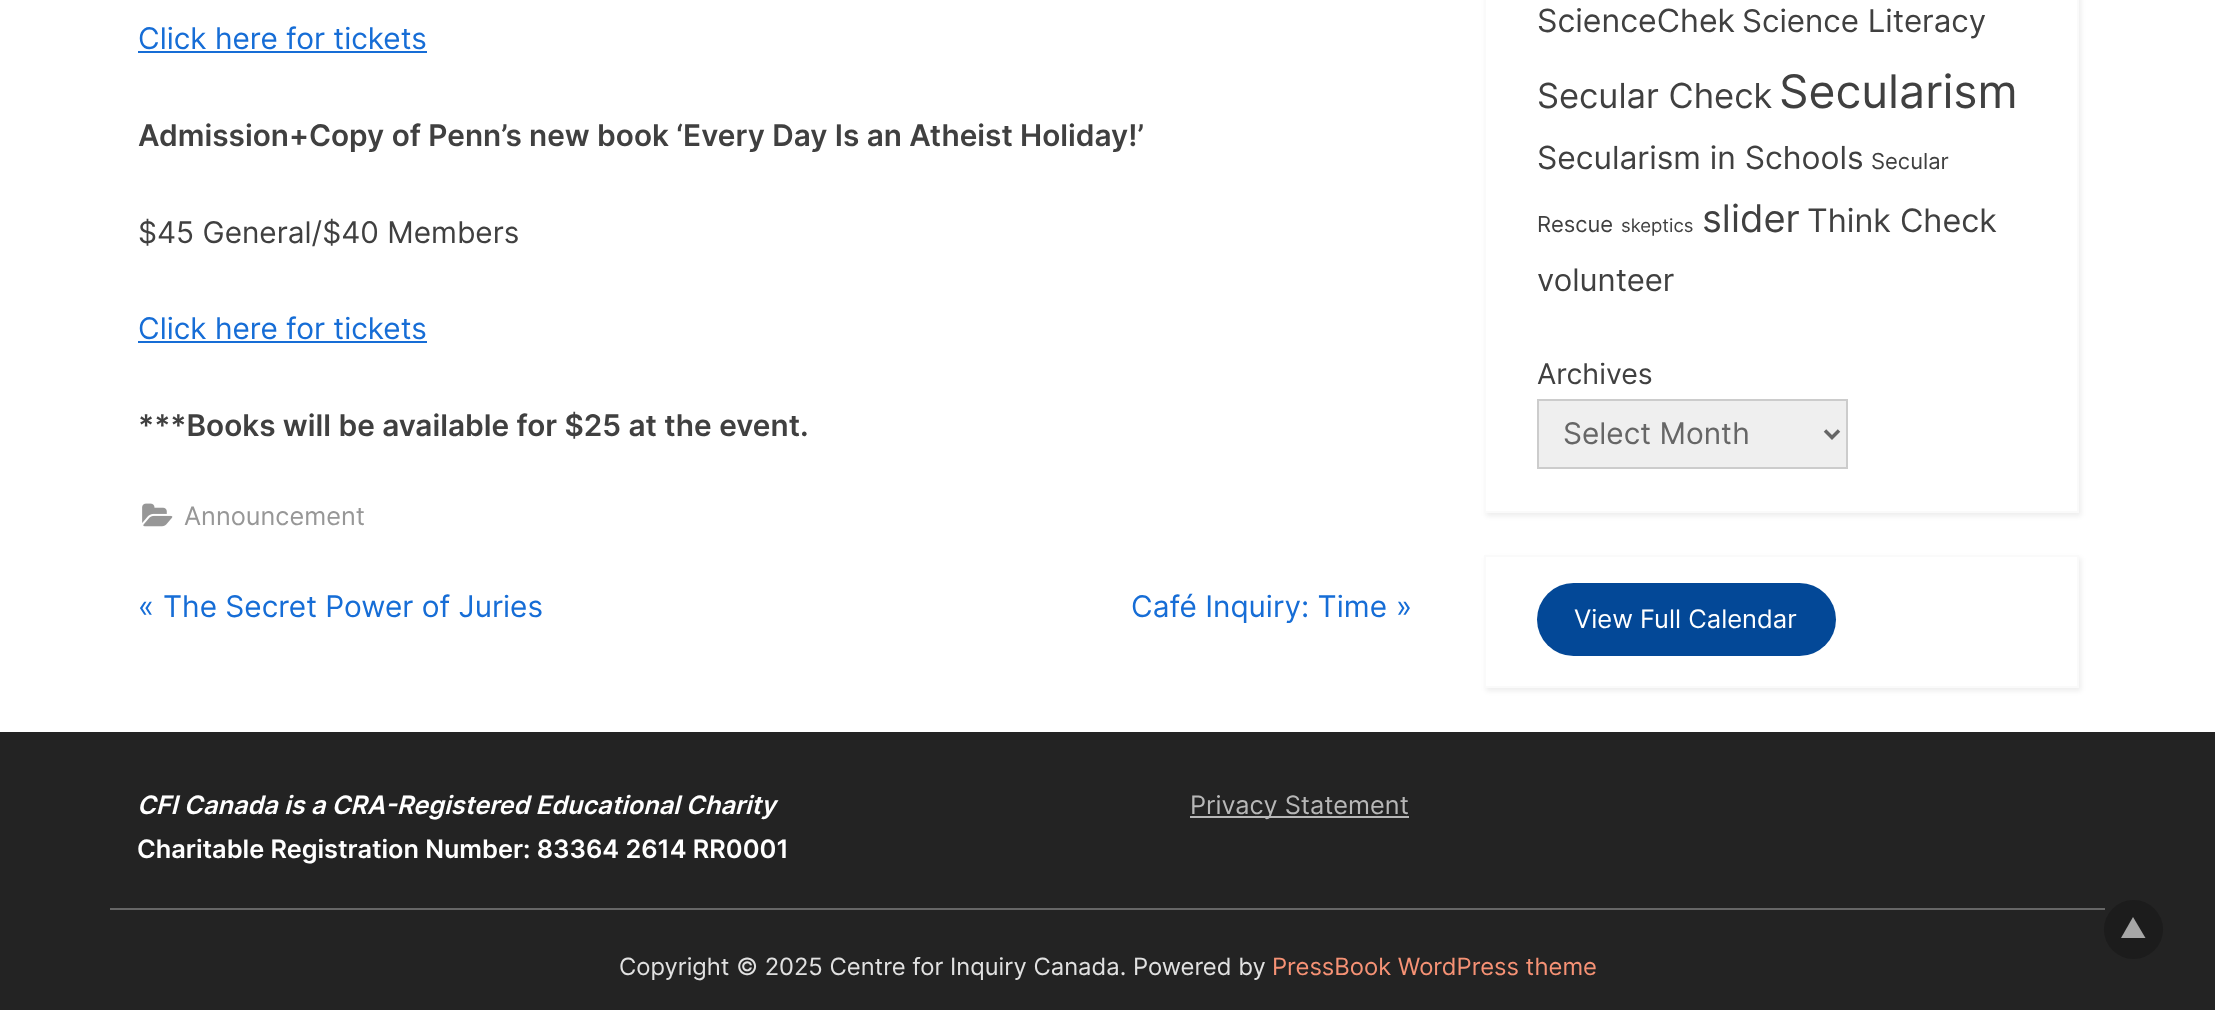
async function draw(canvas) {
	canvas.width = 2215;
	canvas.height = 1010;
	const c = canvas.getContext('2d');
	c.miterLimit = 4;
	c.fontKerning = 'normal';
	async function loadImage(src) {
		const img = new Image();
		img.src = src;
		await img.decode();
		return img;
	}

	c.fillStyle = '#fff';
	c.fillRect(0, 0, 2215, 1010);
	c.font = '29.75px Inter';
	c.fillStyle = '#166dd6';
	c.fillText('Click here for tickets', 138, 49);
	c.fillRect(138, 51, 289, 2);
	c.font = '600 29.75px Inter';
	c.fillStyle = '#404040';
	c.fillText('Admission+Copy of Penn’s new book ‘Every Day Is an Atheist Holiday!’', 138, 146);
	c.font = '29.75px Inter';
	c.fillText('$45 General/$40 Members', 138, 243);
	c.fillStyle = '#166dd6';
	c.fillText('Click here for tickets', 138, 339);
	c.fillRect(138, 341, 289, 2);
	c.font = '600 29.75px Inter';
	c.fillStyle = '#404040';
	c.fillText('***Books will be available for $25 at the event.', 138, 436);
	c.drawImage(await loadImage('img1.png'), 142, 503, 31, 24);
	c.font = '25.3px Inter';
	c.fillStyle = '#979797';
	c.fillText('Announcement', 184, 525);
	c.font = '29.75px Inter';
	c.fillStyle = '#166dd6';
	for (const [text, x, y] of [
		['«', 138, 617],
		['The Secret Power of Juries', 163, 617],
		['Café Inquiry: Time', 1131, 617],
		['»', 1396, 617],
	]) {
		c.fillText(text, x, y);
	}
	c.fillStyle = '#00000012';
	c.filter = 'blur(2.5px)';
	c.beginPath();
	c.rect(1486, -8, 595, 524);
	c.fill();
	c.filter = 'none';
	c.fillStyle = '#fff';
	c.beginPath();
	c.rect(1485, -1, 593, 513);
	c.fill();
	c.strokeStyle = '#fafafa';
	c.lineWidth = 2;
	c.stroke();
	c.font = '32px Inter';
	c.fillStyle = '#404040';
	c.fillText('ScienceChek', 1537, 32);
	c.font = '31.25px Inter';
	c.fillText('Science Literacy', 1742, 32);
	c.font = '34.5px Inter';
	c.fillText('Secular Check', 1537, 108);
	c.font = '46.25px Inter';
	c.fillText('Secularism', 1779, 108);
	c.font = '31.75px Inter';
	c.fillText('Secularism in Schools', 1537, 169);
	c.font = '22px Inter';
	c.fillText('Secular', 1871, 169);
	c.fillText('Rescue', 1537, 232);
	c.font = '18.5px Inter';
	c.fillText('skeptics', 1621, 232);
	c.font = '38px Inter';
	c.fillText('slider', 1702, 232);
	c.font = '32.25px Inter';
	c.fillText('Think Check', 1807, 232);
	c.font = '31px Inter';
	c.fillText('volunteer', 1537, 291);
	c.font = '28.5px Inter';
	c.fillText('Archives', 1537, 384);
	c.fillStyle = '#efefef';
	c.beginPath();
	c.rect(1538, 400, 309, 68);
	c.fill();
	c.strokeStyle = '#ccc';
	c.stroke();
	c.beginPath();
	c.moveTo(1825, 430.5);
	c.lineTo(1832, 437.5);
	c.lineTo(1839, 430.5);
	c.strokeStyle = '#666';
	c.lineWidth = 3.5;
	c.stroke();
	c.font = '29.75px Inter';
	c.fillStyle = '#666';
	c.fillText('Select Month', 1563, 444);
	c.fillStyle = '#00000012';
	c.filter = 'blur(2.5px)';
	c.beginPath();
	c.rect(1486, 558, 595, 133);
	c.fill();
	c.filter = 'none';
	c.fillStyle = '#fff';
	c.beginPath();
	c.rect(1485, 556, 593, 131);
	c.fill();
	c.strokeStyle = '#fafafa';
	c.lineWidth = 2;
	c.stroke();
	c.fillStyle = '#034897';
	c.beginPath();
	c.roundRect(1537, 583, 299, 73, 36.5);
	c.fill();
	c.font = '25.5px Inter';
	c.fillStyle = '#fff';
	c.fillText('View Full Calendar', 1574, 628);
	c.fillStyle = '#232323';
	c.fillRect(0, 732, 2215, 278);
	c.fillStyle = '#666';
	c.fillRect(110, 908, 1995, 2);
	c.font = 'italic 600 25.3px Inter';
	c.fillStyle = '#fff';
	c.fillText('CFI Canada is a CRA-Registered Educational Charity', 137, 814);
	c.font = '600 25.3px Inter';
	c.fillText('Charitable Registration Number: 83364 2614 RR0001', 137, 858);
	c.fillStyle = '#b7b7b7';
	c.fillRect(1190, 816, 219, 2);
	c.font = '25.3px Inter';
	c.fillText('Privacy Statement', 1190, 814);
	c.font = '23.8px Inter';
	c.fillStyle = '#e1e1e1';
	c.fillText('Copyright © 2025 Centre for Inquiry Canada. Powered by', 619, 975);
	c.fillStyle = '#f69275';
	c.fillText('PressBook WordPress theme', 1272, 975);
	c.fillStyle = '#1c1c1c';
	c.beginPath();
	c.arc(2133.5, 929.5, 29.5, 0, 2 * Math.PI);
	c.fill();
	c.fillStyle = '#a7a7a7';
	c.beginPath();
	c.moveTo(2145.5, 938);
	c.lineTo(2121, 938);
	c.lineTo(2133, 917);
	c.closePath();
	c.fill();
}

draw(document.querySelector('canvas'));
